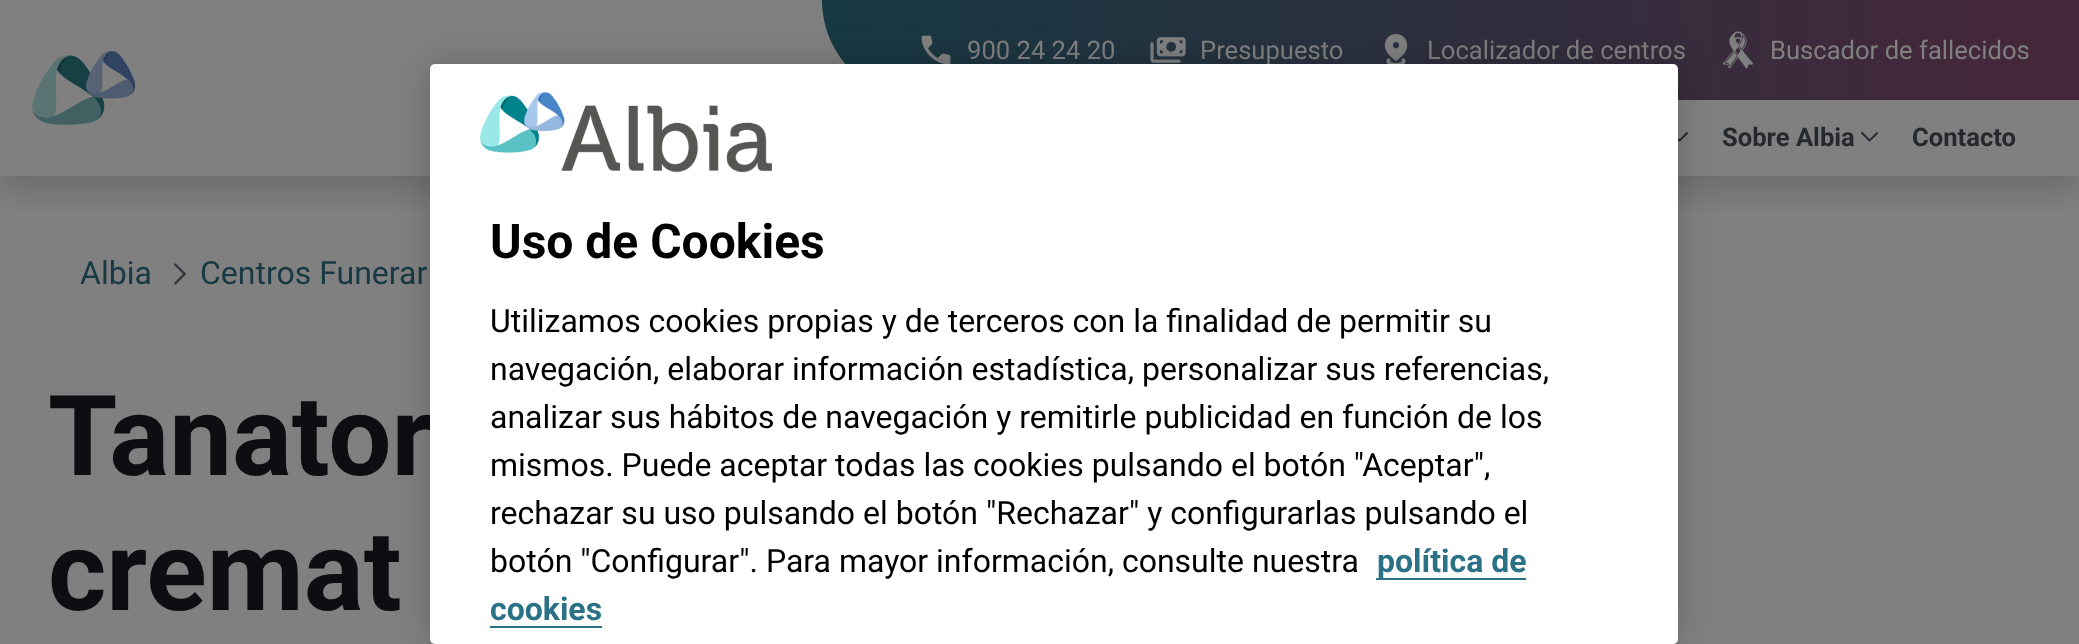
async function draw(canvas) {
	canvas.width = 2079;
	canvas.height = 644;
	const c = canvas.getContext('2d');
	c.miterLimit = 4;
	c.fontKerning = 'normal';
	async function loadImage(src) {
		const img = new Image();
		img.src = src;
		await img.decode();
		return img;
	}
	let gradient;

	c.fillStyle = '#808080';
	c.fillRect(0, 0, 2079, 644);
	c.save();
	c.beginPath();
	c.rect(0, 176, 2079, 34);
	c.clip();
	c.fillStyle = '#00000026';
	c.filter = 'blur(16px)';
	c.beginPath();
	c.rect(0, 16, 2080, 176);
	c.fill();
	c.filter = 'none';
	c.restore();
	c.drawImage(await loadImage('img1.png'), 32, 51, 104, 74);
	gradient = c.createLinearGradient(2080, 50, 822, 50);
	gradient.addColorStop(0, '#47263a');
	gradient.addColorStop(1, '#163943');
	c.fillStyle = gradient;
	c.beginPath();
	c.moveTo(822, 0);
	c.lineTo(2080, 0);
	c.lineTo(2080, 100);
	c.lineTo(922, 100);
	c.bezierCurveTo(867, 100, 822, 55, 822, 0);
	c.closePath();
	c.fill();
	c.drawImage(await loadImage('img2.png'), 921, 35, 30, 29);
	c.font = '25.6px Roboto';
	c.fillStyle = '#808080';
	c.fillText('900 24 24 20', 967, 59);
	c.drawImage(await loadImage('img3.png'), 1150, 37, 36, 26);
	c.fillText('Presupuesto', 1200, 59);
	c.drawImage(await loadImage('img4.png'), 1384, 34, 24, 30);
	c.fillText('Localizador de centros', 1427, 59);
	c.drawImage(await loadImage('img5.png'), 1722, 31, 32, 38);
	c.fillText('Buscador de fallecidos', 1770, 59);
	c.drawImage(await loadImage('img6.png'), 1678, 132, 10, 10);
	c.font = 'bold 25.6px Roboto';
	c.fillStyle = '#25282c';
	c.fillText('Sobre Albia', 1722, 146);
	c.drawImage(await loadImage('img7.png'), 1861, 132, 17, 10);
	c.fillText('Contacto', 1912, 146);
	c.font = '32px Roboto';
	c.fillStyle = '#163943';
	c.fillText('Albia', 80, 284);
	c.drawImage(await loadImage('img8.png'), 174, 263, 12, 22);
	c.fillText('Centros Funerar', 200, 284);
	c.font = 'bold 112px Roboto';
	c.fillStyle = '#0e0e12';
	c.fillText('Tanator', 48, 475);
	c.fillText('cremat', 48, 610);
	c.fillStyle = '#00000033';
	c.filter = 'blur(18px)';
	c.beginPath();
	c.roundRect(430, 64, 1248, 580, 5);
	c.fill();
	c.filter = 'none';
	c.fillStyle = '#fff';
	c.beginPath();
	c.roundRect(430, 64, 1248, 580, 5);
	c.fill();
	c.drawImage(await loadImage('img9.png'), 480, 92, 292, 81);
	c.font = 'bold 48px Roboto';
	c.fillStyle = '#000';
	c.fillText('Uso de Cookies', 490, 258);
	c.font = '32px Roboto';
	for (const [text, x, y] of [
		['Utilizamos cookies propias y de terceros con la finalidad de permitir su', 490, 332],
		['navegación, elaborar información estadística, personalizar sus referencias,', 490, 380],
		['analizar sus hábitos de navegación y remitirle publicidad en función de los', 490, 428],
		['mismos. Puede aceptar todas las cookies pulsando el botón "Aceptar",', 490, 476],
		['rechazar su uso pulsando el botón "Rechazar" y configurarlas pulsando el', 490, 524],
		['botón "Configurar". Para mayor información, consulte nuestra', 490, 572],
	]) {
		c.fillText(text, x, y);
	}
	c.fillStyle = '#2b7286';
	c.fillRect(1376, 578, 150, 2);
	c.font = 'bold 32px Roboto';
	c.fillText('política de', 1377, 572);
	c.fillText('cookies', 490, 620);
	c.fillRect(490, 626, 112, 2);
}

draw(document.querySelector('canvas'));
